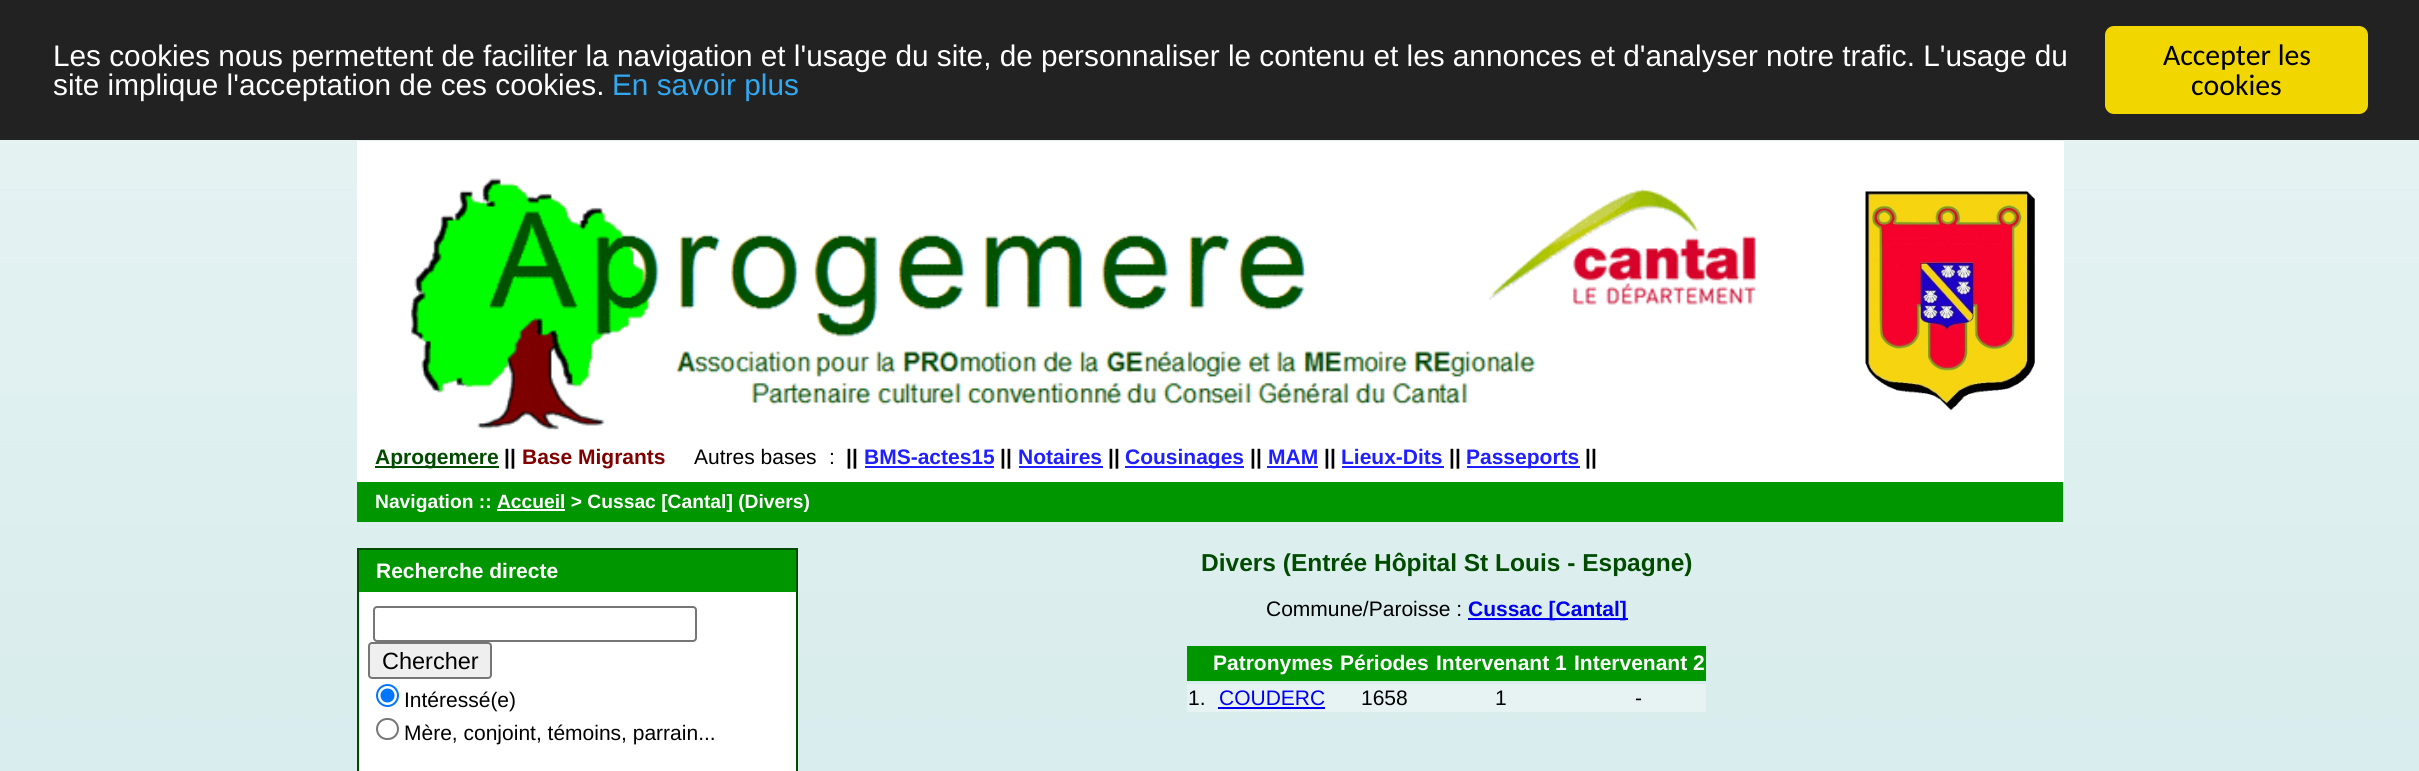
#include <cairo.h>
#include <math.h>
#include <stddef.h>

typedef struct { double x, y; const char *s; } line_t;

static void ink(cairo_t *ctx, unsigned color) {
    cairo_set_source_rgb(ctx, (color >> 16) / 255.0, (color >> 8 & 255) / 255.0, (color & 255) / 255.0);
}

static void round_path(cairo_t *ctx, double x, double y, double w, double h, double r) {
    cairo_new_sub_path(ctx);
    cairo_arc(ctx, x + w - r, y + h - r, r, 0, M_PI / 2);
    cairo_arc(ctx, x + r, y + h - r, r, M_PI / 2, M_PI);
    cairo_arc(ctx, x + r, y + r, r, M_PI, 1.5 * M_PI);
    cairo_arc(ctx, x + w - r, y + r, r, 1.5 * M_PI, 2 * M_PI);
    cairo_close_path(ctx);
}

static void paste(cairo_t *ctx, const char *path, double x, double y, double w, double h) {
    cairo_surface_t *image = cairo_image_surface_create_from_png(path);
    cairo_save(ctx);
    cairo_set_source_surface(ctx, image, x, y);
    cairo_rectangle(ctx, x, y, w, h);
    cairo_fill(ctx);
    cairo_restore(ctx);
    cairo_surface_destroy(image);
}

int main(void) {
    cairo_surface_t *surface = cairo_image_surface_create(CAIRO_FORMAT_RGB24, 2419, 771);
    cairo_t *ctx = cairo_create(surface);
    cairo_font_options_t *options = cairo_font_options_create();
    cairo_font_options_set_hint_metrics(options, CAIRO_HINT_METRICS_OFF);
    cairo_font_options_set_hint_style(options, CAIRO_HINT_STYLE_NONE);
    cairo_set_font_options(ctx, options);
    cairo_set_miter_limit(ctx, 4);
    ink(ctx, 0xFFFFFF);
    cairo_paint(ctx);
    paste(ctx, "media/1.png", 0, 140, 2419, 631);
    ink(ctx, 0x222222);
    cairo_rectangle(ctx, 0, 0, 2419, 140);
    cairo_fill(ctx);
    cairo_select_font_face(ctx, "Liberation Sans", CAIRO_FONT_SLANT_NORMAL, CAIRO_FONT_WEIGHT_NORMAL);
    cairo_set_font_size(ctx, 29.75);
    ink(ctx, 0xFFFFFF);
    cairo_move_to(ctx, 53, 66);
    cairo_show_text(ctx, "Les cookies nous permettent de faciliter la navigation et l'usage du site, de personnaliser le contenu et les annonces et d'analyser notre trafic. L'usage du");
    cairo_move_to(ctx, 53, 95);
    cairo_show_text(ctx, "site implique l'acceptation de ces cookies.");
    ink(ctx, 0x31A8F0);
    cairo_move_to(ctx, 612, 95);
    cairo_show_text(ctx, "En savoir plus");
    ink(ctx, 0xF1D600);
    round_path(ctx, 2105, 26, 263, 88, 9);
    cairo_fill(ctx);
    cairo_select_font_face(ctx, "Carlito", CAIRO_FONT_SLANT_NORMAL, CAIRO_FONT_WEIGHT_NORMAL);
    ink(ctx, 0x000000);
    cairo_move_to(ctx, 2163, 65);
    cairo_show_text(ctx, "Accepter les");
    cairo_move_to(ctx, 2191, 95);
    cairo_show_text(ctx, "cookies");
    ink(ctx, 0xFFFFFF);
    cairo_rectangle(ctx, 357, 141, 1707, 341);
    cairo_fill(ctx);
    paste(ctx, "media/2.png", 410, 178, 1346, 252);
    paste(ctx, "media/3.png", 1865, 191, 170, 220);
    ink(ctx, 0x004B00);
    cairo_rectangle(ctx, 375, 466, 124, 2);
    cairo_fill(ctx);
    cairo_select_font_face(ctx, "Liberation Sans", CAIRO_FONT_SLANT_NORMAL, CAIRO_FONT_WEIGHT_BOLD);
    cairo_set_font_size(ctx, 21);
    cairo_move_to(ctx, 375, 464);
    cairo_show_text(ctx, "Aprogemere");
    ink(ctx, 0x000000);
    cairo_move_to(ctx, 504, 464);
    cairo_show_text(ctx, "||");
    ink(ctx, 0x800000);
    cairo_move_to(ctx, 522, 464);
    cairo_show_text(ctx, "Base Migrants");
    cairo_select_font_face(ctx, "Liberation Sans", CAIRO_FONT_SLANT_NORMAL, CAIRO_FONT_WEIGHT_NORMAL);
    ink(ctx, 0x000000);
    cairo_move_to(ctx, 694, 464);
    cairo_show_text(ctx, "Autres bases");
    cairo_move_to(ctx, 829, 464);
    cairo_show_text(ctx, ":");
    cairo_select_font_face(ctx, "Liberation Sans", CAIRO_FONT_SLANT_NORMAL, CAIRO_FONT_WEIGHT_BOLD);
    cairo_move_to(ctx, 846, 464);
    cairo_show_text(ctx, "||");
    ink(ctx, 0x2020FF);
    cairo_move_to(ctx, 864, 464);
    cairo_show_text(ctx, "BMS-actes15");
    cairo_rectangle(ctx, 865, 466, 129, 2);
    cairo_fill(ctx);
    ink(ctx, 0x000000);
    cairo_move_to(ctx, 1000, 464);
    cairo_show_text(ctx, "||");
    ink(ctx, 0x2020FF);
    cairo_move_to(ctx, 1018, 464);
    cairo_show_text(ctx, "Notaires");
    cairo_rectangle(ctx, 1019, 466, 84, 2);
    cairo_fill(ctx);
    ink(ctx, 0x000000);
    cairo_move_to(ctx, 1108, 464);
    cairo_show_text(ctx, "||");
    ink(ctx, 0x2020FF);
    cairo_rectangle(ctx, 1125, 466, 119, 2);
    cairo_fill(ctx);
    cairo_move_to(ctx, 1125, 464);
    cairo_show_text(ctx, "Cousinages");
    ink(ctx, 0x000000);
    cairo_move_to(ctx, 1250, 464);
    cairo_show_text(ctx, "||");
    ink(ctx, 0x2020FF);
    cairo_move_to(ctx, 1268, 464);
    cairo_show_text(ctx, "MAM");
    cairo_rectangle(ctx, 1267, 466, 51, 2);
    cairo_fill(ctx);
    ink(ctx, 0x000000);
    cairo_move_to(ctx, 1324, 464);
    cairo_show_text(ctx, "||");
    ink(ctx, 0x2020FF);
    cairo_move_to(ctx, 1341, 464);
    cairo_show_text(ctx, "Lieux-Dits");
    cairo_rectangle(ctx, 1342, 466, 102, 2);
    cairo_fill(ctx);
    ink(ctx, 0x000000);
    cairo_move_to(ctx, 1449, 464);
    cairo_show_text(ctx, "||");
    ink(ctx, 0x2020FF);
    cairo_rectangle(ctx, 1467, 466, 113, 2);
    cairo_fill(ctx);
    cairo_move_to(ctx, 1466, 464);
    cairo_show_text(ctx, "Passeports");
    ink(ctx, 0x000000);
    cairo_move_to(ctx, 1585, 464);
    cairo_show_text(ctx, "||");
    ink(ctx, 0x009600);
    cairo_rectangle(ctx, 357, 482, 1706, 40);
    cairo_fill(ctx);
    cairo_set_font_size(ctx, 19.25);
    ink(ctx, 0xFFFFFF);
    cairo_move_to(ctx, 375, 508);
    cairo_show_text(ctx, "Navigation :: Accueil > Cussac [Cantal] (Divers)");
    cairo_rectangle(ctx, 497, 509, 68, 2);
    cairo_fill(ctx);
    cairo_rectangle(ctx, 359, 592, 437, 179);
    cairo_fill(ctx);
    cairo_rectangle(ctx, 358, 549, 439, 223);
    ink(ctx, 0x004B00);
    cairo_stroke(ctx);
    ink(ctx, 0x009600);
    cairo_rectangle(ctx, 359, 550, 437, 42);
    cairo_fill(ctx);
    cairo_set_font_size(ctx, 21);
    ink(ctx, 0xFFFFFF);
    cairo_move_to(ctx, 376, 578);
    cairo_show_text(ctx, "Recherche directe");
    round_path(ctx, 374, 607, 322, 34, 3);
    ink(ctx, 0x767676);
    cairo_stroke(ctx);
    ink(ctx, 0xEFEFEF);
    round_path(ctx, 369, 643, 122, 35, 3);
    cairo_fill_preserve(ctx);
    ink(ctx, 0x767676);
    cairo_stroke(ctx);
    cairo_select_font_face(ctx, "Liberation Sans", CAIRO_FONT_SLANT_NORMAL, CAIRO_FONT_WEIGHT_NORMAL);
    cairo_set_font_size(ctx, 23.5);
    ink(ctx, 0x000000);
    cairo_move_to(ctx, 382, 669);
    cairo_show_text(ctx, "Chercher");
    cairo_new_path(ctx);
    cairo_arc(ctx, 387.5, 695.5, 10.5, 0, 2 * M_PI);
    ink(ctx, 0x0075FF);
    cairo_stroke(ctx);
    cairo_arc(ctx, 387.5, 695.5, 7, 0, 2 * M_PI);
    cairo_fill(ctx);
    cairo_set_font_size(ctx, 21);
    ink(ctx, 0x000000);
    cairo_move_to(ctx, 404, 707);
    cairo_show_text(ctx, "Intéressé(e)");
    round_path(ctx, 377, 719, 21, 20, 10);
    ink(ctx, 0x767676);
    cairo_stroke(ctx);
    ink(ctx, 0x000000);
    cairo_move_to(ctx, 404, 740);
    cairo_show_text(ctx, "Mère, conjoint, témoins, parrain...");
    cairo_select_font_face(ctx, "Liberation Sans", CAIRO_FONT_SLANT_NORMAL, CAIRO_FONT_WEIGHT_BOLD);
    cairo_set_font_size(ctx, 24.5);
    ink(ctx, 0x004B00);
    cairo_move_to(ctx, 1201, 571);
    cairo_show_text(ctx, "Divers (Entrée Hôpital St Louis - Espagne)");
    cairo_select_font_face(ctx, "Liberation Sans", CAIRO_FONT_SLANT_NORMAL, CAIRO_FONT_WEIGHT_NORMAL);
    cairo_set_font_size(ctx, 21);
    ink(ctx, 0x000000);
    cairo_move_to(ctx, 1266, 616);
    cairo_show_text(ctx, "Commune/Paroisse :");
    ink(ctx, 0x0000EE);
    cairo_rectangle(ctx, 1468, 618, 160, 2);
    cairo_fill(ctx);
    cairo_select_font_face(ctx, "Liberation Sans", CAIRO_FONT_SLANT_NORMAL, CAIRO_FONT_WEIGHT_BOLD);
    cairo_move_to(ctx, 1468, 616);
    cairo_show_text(ctx, "Cussac [Cantal]");
    ink(ctx, 0x009600);
    cairo_rectangle(ctx, 1187, 646, 519, 35);
    cairo_fill(ctx);
    ink(ctx, 0xFFFFFF);
    {
        static const line_t items[] = {
            {1213, 670, "Patronymes"},
            {1340, 670, "Périodes"},
            {1436, 670, "Intervenant 1"},
            {1574, 670, "Intervenant 2"},
        };
        for (size_t i = 0; i < sizeof items / sizeof *items; i++) {
            cairo_move_to(ctx, items[i].x, items[i].y);
            cairo_show_text(ctx, items[i].s);
        }
    }
    ink(ctx, 0xE7F3F3);
    cairo_rectangle(ctx, 1187, 684, 519, 28);
    cairo_fill(ctx);
    cairo_select_font_face(ctx, "Liberation Sans", CAIRO_FONT_SLANT_NORMAL, CAIRO_FONT_WEIGHT_NORMAL);
    ink(ctx, 0x000000);
    cairo_move_to(ctx, 1188, 705);
    cairo_show_text(ctx, "1.");
    ink(ctx, 0x0000EE);
    cairo_move_to(ctx, 1219, 705);
    cairo_show_text(ctx, "COUDERC");
    cairo_rectangle(ctx, 1218, 707, 107, 2);
    cairo_fill(ctx);
    ink(ctx, 0x000000);
    {
        static const line_t items[] = {
            {1361, 705, "1658"},
            {1495, 705, "1"},
            {1635, 705, "-"},
        };
        for (size_t i = 0; i < sizeof items / sizeof *items; i++) {
            cairo_move_to(ctx, items[i].x, items[i].y);
            cairo_show_text(ctx, items[i].s);
        }
    }
    cairo_surface_write_to_png(surface, "image.png");
    cairo_font_options_destroy(options);
    cairo_destroy(ctx);
    cairo_surface_destroy(surface);
    return 0;
}
